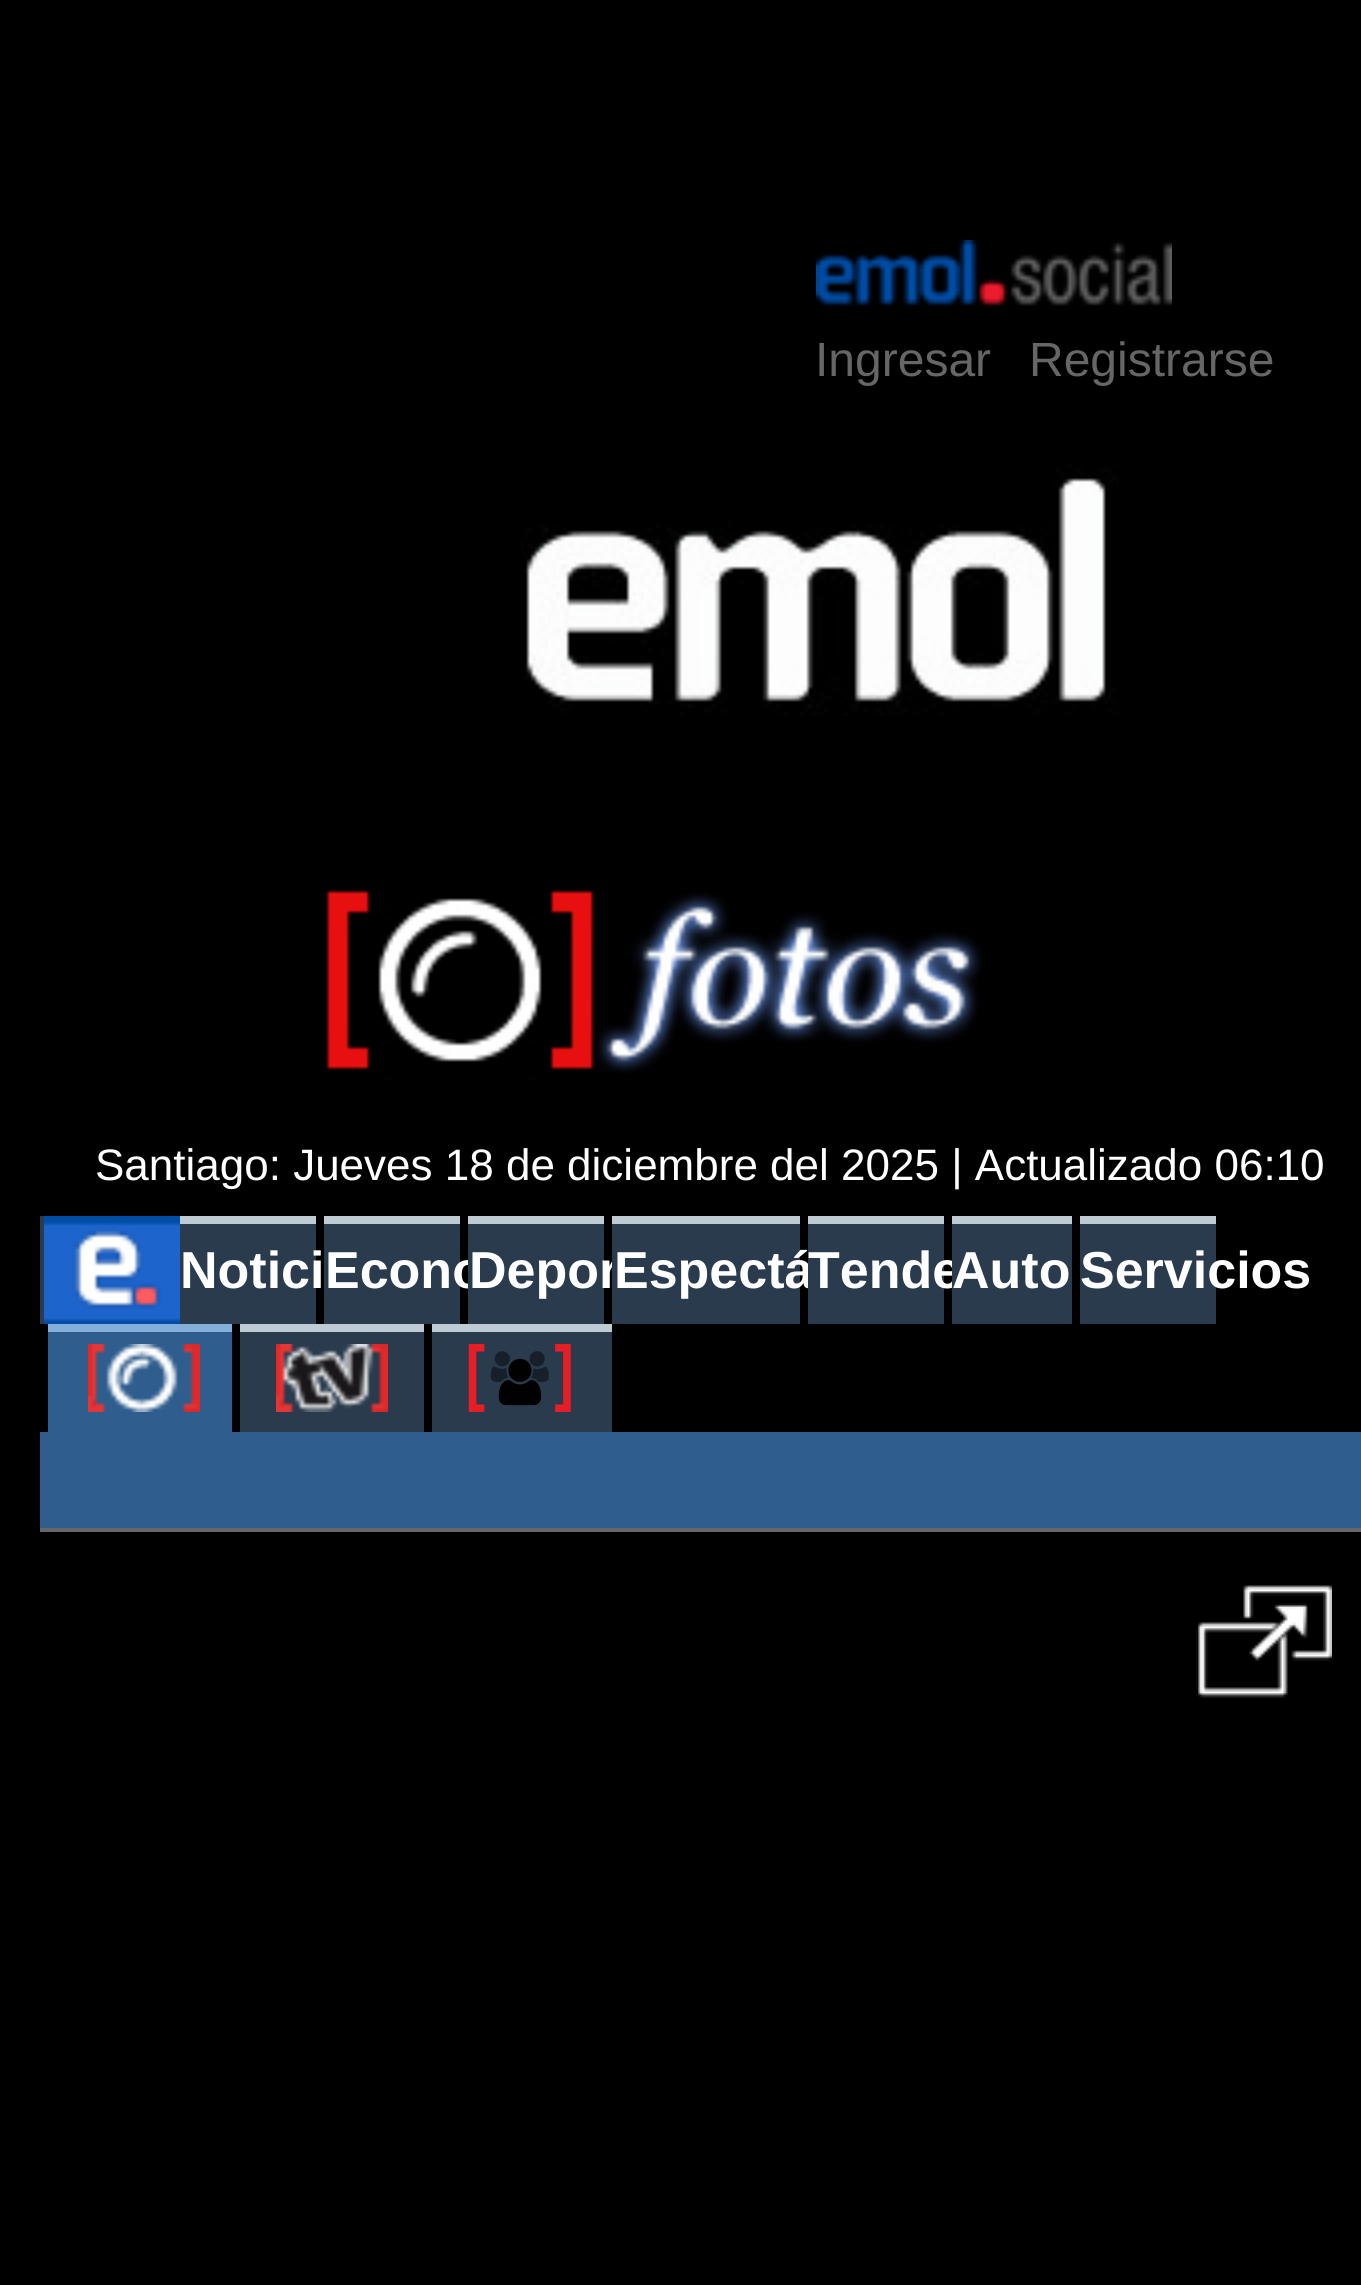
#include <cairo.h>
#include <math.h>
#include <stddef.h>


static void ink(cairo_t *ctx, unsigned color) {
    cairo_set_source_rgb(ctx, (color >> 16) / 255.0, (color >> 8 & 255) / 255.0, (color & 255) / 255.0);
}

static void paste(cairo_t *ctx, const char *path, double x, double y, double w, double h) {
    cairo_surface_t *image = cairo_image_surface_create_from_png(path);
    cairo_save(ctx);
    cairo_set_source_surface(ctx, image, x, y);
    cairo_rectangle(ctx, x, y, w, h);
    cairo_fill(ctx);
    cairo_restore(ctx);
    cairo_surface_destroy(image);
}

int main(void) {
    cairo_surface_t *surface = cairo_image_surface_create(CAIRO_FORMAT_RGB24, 1361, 2285);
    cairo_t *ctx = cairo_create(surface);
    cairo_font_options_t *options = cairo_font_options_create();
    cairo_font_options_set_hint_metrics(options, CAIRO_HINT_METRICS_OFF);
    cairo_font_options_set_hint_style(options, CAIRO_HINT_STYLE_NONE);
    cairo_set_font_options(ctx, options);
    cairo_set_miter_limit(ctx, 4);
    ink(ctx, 0x000000);
    cairo_paint(ctx);
    paste(ctx, "media/1.png", 816, 240, 356, 66);
    cairo_select_font_face(ctx, "Liberation Sans", CAIRO_FONT_SLANT_NORMAL, CAIRO_FONT_WEIGHT_NORMAL);
    cairo_set_font_size(ctx, 48);
    ink(ctx, 0x666666);
    cairo_move_to(ctx, 815, 376);
    cairo_show_text(ctx, "Ingresar");
    cairo_move_to(ctx, 1029, 376);
    cairo_show_text(ctx, "Registrarse");
    paste(ctx, "media/2.png", 521, 463, 598, 253);
    paste(ctx, "media/3.png", 326, 890, 656, 192);
    cairo_set_font_size(ctx, 44);
    ink(ctx, 0xFFFFFF);
    cairo_move_to(ctx, 95, 1180);
    cairo_show_text(ctx, "Santiago: Jueves 18 de diciembre del 2025 | Actualizado 06:10");
    ink(ctx, 0x293B4D);
    cairo_rectangle(ctx, 40, 1216, 4, 108);
    cairo_fill(ctx);
    paste(ctx, "media/4.png", 44, 1216, 136, 108);
    cairo_rectangle(ctx, 180, 1224, 136, 100);
    cairo_fill(ctx);
    ink(ctx, 0xBECBD3);
    cairo_rectangle(ctx, 180, 1216, 136, 8);
    cairo_fill(ctx);
    cairo_select_font_face(ctx, "Liberation Sans", CAIRO_FONT_SLANT_NORMAL, CAIRO_FONT_WEIGHT_BOLD);
    cairo_set_font_size(ctx, 52);
    ink(ctx, 0xFFFFFF);
    cairo_move_to(ctx, 180, 1288);
    cairo_show_text(ctx, "Notici");
    ink(ctx, 0x293B4D);
    cairo_rectangle(ctx, 324, 1224, 136, 100);
    cairo_fill(ctx);
    ink(ctx, 0xBECBD3);
    cairo_rectangle(ctx, 324, 1216, 136, 8);
    cairo_fill(ctx);
    ink(ctx, 0xFFFFFF);
    cairo_move_to(ctx, 325, 1288);
    cairo_show_text(ctx, "Econo");
    ink(ctx, 0x293B4D);
    cairo_rectangle(ctx, 468, 1224, 136, 100);
    cairo_fill(ctx);
    ink(ctx, 0xBECBD3);
    cairo_rectangle(ctx, 468, 1216, 136, 8);
    cairo_fill(ctx);
    ink(ctx, 0xFFFFFF);
    cairo_move_to(ctx, 469, 1288);
    cairo_show_text(ctx, "Depor");
    ink(ctx, 0x293B4D);
    cairo_rectangle(ctx, 612, 1224, 188, 100);
    cairo_fill(ctx);
    ink(ctx, 0xBECBD3);
    cairo_rectangle(ctx, 612, 1216, 188, 8);
    cairo_fill(ctx);
    ink(ctx, 0xFFFFFF);
    cairo_move_to(ctx, 614, 1288);
    cairo_show_text(ctx, "Espectá");
    ink(ctx, 0x293B4D);
    cairo_rectangle(ctx, 808, 1224, 136, 100);
    cairo_fill(ctx);
    ink(ctx, 0xBECBD3);
    cairo_rectangle(ctx, 808, 1216, 136, 8);
    cairo_fill(ctx);
    ink(ctx, 0xFFFFFF);
    cairo_move_to(ctx, 808, 1288);
    cairo_show_text(ctx, "Tende");
    ink(ctx, 0x293B4D);
    cairo_rectangle(ctx, 952, 1224, 120, 100);
    cairo_fill(ctx);
    ink(ctx, 0xBECBD3);
    cairo_rectangle(ctx, 952, 1216, 120, 8);
    cairo_fill(ctx);
    ink(ctx, 0xFFFFFF);
    cairo_move_to(ctx, 952, 1288);
    cairo_show_text(ctx, "Auto");
    ink(ctx, 0x293B4D);
    cairo_rectangle(ctx, 1080, 1224, 136, 100);
    cairo_fill(ctx);
    ink(ctx, 0xBECBD3);
    cairo_rectangle(ctx, 1080, 1216, 136, 8);
    cairo_fill(ctx);
    ink(ctx, 0xFFFFFF);
    cairo_move_to(ctx, 1080, 1288);
    cairo_show_text(ctx, "Servicios");
    ink(ctx, 0x2F5D8D);
    cairo_rectangle(ctx, 48, 1332, 184, 100);
    cairo_fill(ctx);
    ink(ctx, 0x85AFDB);
    cairo_rectangle(ctx, 48, 1324, 184, 8);
    cairo_fill(ctx);
    paste(ctx, "media/5.png", 88, 1344, 112, 68);
    ink(ctx, 0x293B4D);
    cairo_rectangle(ctx, 240, 1332, 184, 100);
    cairo_fill(ctx);
    ink(ctx, 0xBECBD3);
    cairo_rectangle(ctx, 240, 1324, 184, 8);
    cairo_fill(ctx);
    paste(ctx, "media/6.png", 276, 1344, 112, 68);
    ink(ctx, 0x293B4D);
    cairo_rectangle(ctx, 432, 1332, 180, 100);
    cairo_fill(ctx);
    ink(ctx, 0xBECBD3);
    cairo_rectangle(ctx, 432, 1324, 180, 8);
    cairo_fill(ctx);
    paste(ctx, "media/7.png", 468, 1344, 103, 68);
    ink(ctx, 0x2F5D8D);
    cairo_rectangle(ctx, 40, 1432, 1321, 96);
    cairo_fill(ctx);
    ink(ctx, 0x666666);
    cairo_rectangle(ctx, 40, 1528, 1321, 4);
    cairo_fill(ctx);
    paste(ctx, "media/8.png", 1196, 1585, 136, 113);
    cairo_surface_write_to_png(surface, "image.png");
    cairo_font_options_destroy(options);
    cairo_destroy(ctx);
    cairo_surface_destroy(surface);
    return 0;
}
